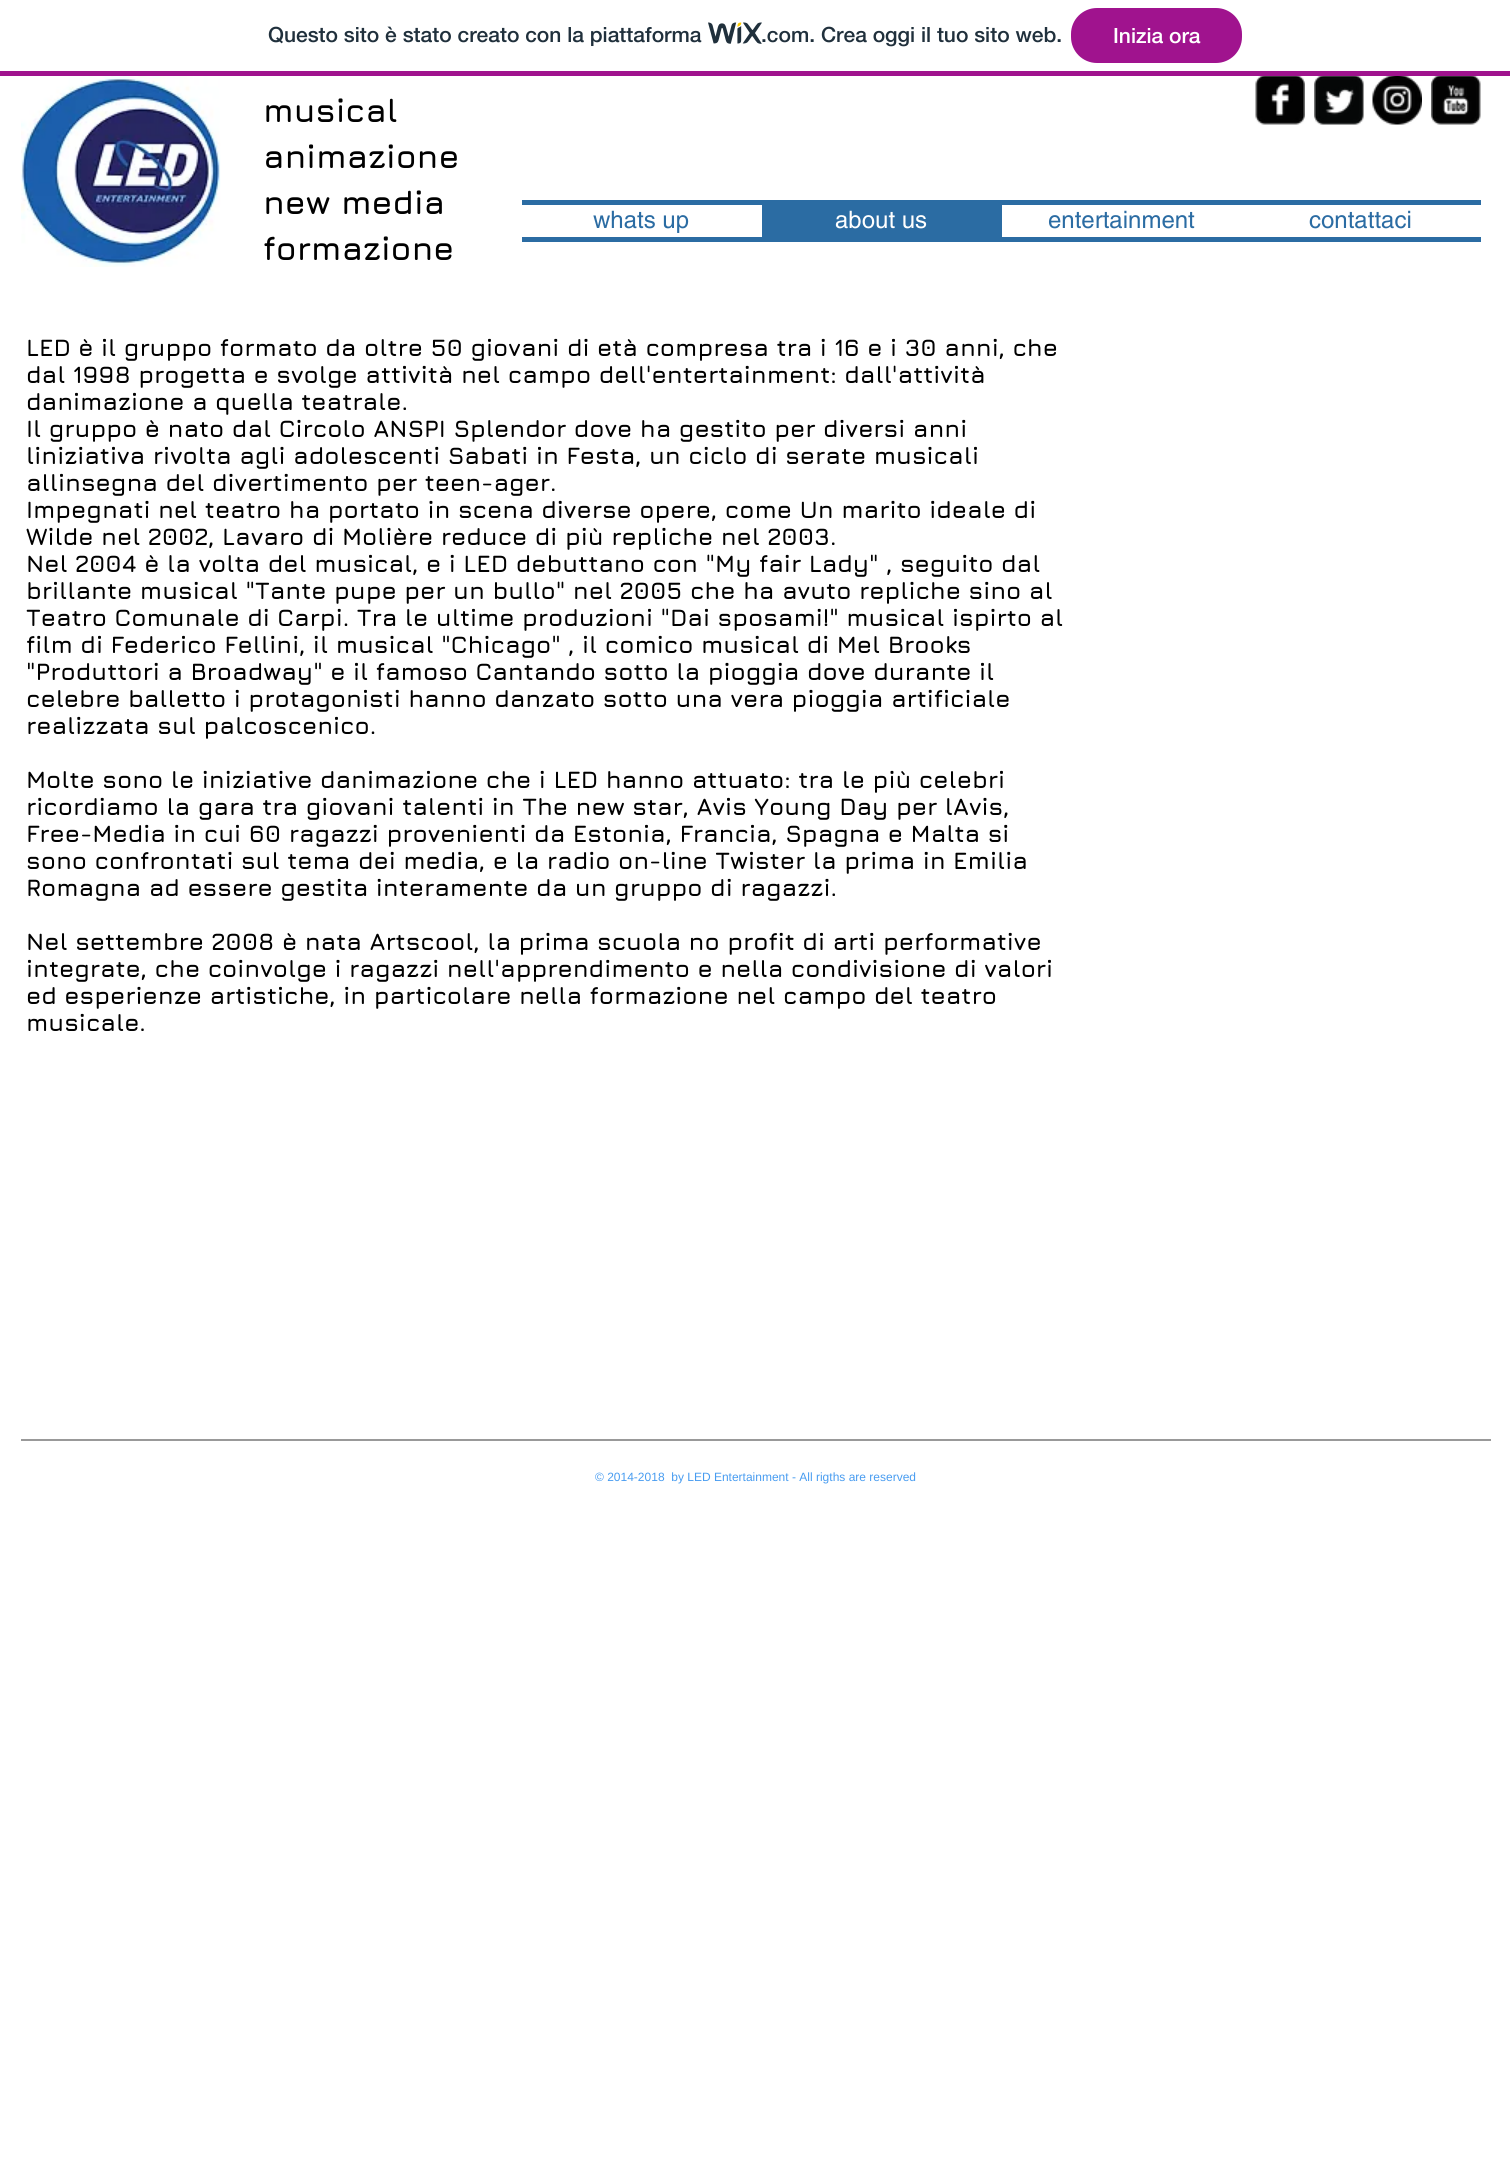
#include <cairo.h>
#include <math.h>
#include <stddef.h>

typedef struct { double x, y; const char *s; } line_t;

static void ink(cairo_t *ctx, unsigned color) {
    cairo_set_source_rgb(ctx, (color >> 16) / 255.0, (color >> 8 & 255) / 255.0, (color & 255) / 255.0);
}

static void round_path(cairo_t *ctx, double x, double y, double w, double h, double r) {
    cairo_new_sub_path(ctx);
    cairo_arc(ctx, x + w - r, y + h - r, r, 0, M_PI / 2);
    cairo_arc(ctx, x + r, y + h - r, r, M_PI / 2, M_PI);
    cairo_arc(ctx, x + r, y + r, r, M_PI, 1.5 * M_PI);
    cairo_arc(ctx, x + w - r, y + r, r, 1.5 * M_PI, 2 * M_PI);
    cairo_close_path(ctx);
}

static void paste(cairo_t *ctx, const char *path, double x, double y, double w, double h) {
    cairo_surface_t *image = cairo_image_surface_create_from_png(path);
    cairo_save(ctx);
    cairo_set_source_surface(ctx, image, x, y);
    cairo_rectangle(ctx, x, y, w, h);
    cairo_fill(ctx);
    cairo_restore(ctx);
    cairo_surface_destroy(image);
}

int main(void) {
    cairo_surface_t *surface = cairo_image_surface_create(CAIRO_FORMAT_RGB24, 1510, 2174);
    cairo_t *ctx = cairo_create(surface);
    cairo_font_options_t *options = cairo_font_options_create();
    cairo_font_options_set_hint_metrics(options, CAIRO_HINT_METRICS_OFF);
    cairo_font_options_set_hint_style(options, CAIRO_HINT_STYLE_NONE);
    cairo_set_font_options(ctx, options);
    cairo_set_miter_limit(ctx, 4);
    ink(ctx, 0xFFFFFF);
    cairo_paint(ctx);
    ink(ctx, 0xA0138E);
    cairo_rectangle(ctx, 0, 71, 1510, 5);
    cairo_fill(ctx);
    cairo_select_font_face(ctx, "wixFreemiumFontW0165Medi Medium", CAIRO_FONT_SLANT_NORMAL, CAIRO_FONT_WEIGHT_NORMAL);
    cairo_set_font_size(ctx, 21);
    ink(ctx, 0x20303C);
    cairo_move_to(ctx, 268, 42);
    cairo_show_text(ctx, "Questo sito è stato creato con la piattaforma");
    paste(ctx, "media/1.png", 708, 22, 54, 22);
    cairo_move_to(ctx, 761, 42);
    cairo_show_text(ctx, ".com. Crea oggi il tuo sito web.");
    ink(ctx, 0xA0138E);
    round_path(ctx, 1072, 9, 169, 53, 25);
    cairo_fill_preserve(ctx);
    cairo_stroke(ctx);
    ink(ctx, 0xFFFFFF);
    cairo_move_to(ctx, 1113, 43);
    cairo_show_text(ctx, "Inizia ora");
    paste(ctx, "media/2.png", 21, 76, 200, 191);
    cairo_select_font_face(ctx, "Jura", CAIRO_FONT_SLANT_NORMAL, CAIRO_FONT_WEIGHT_BOLD);
    cairo_set_font_size(ctx, 33);
    ink(ctx, 0x000000);
    {
        static const line_t items[] = {
            {263, 122, "musical"},
            {263, 168, "animazione"},
            {263, 214, "new media"},
            {263, 260, "formazione"},
        };
        for (size_t i = 0; i < sizeof items / sizeof *items; i++) {
            cairo_move_to(ctx, items[i].x, items[i].y);
            cairo_show_text(ctx, items[i].s);
        }
    }
    paste(ctx, "media/3.png", 1255, 76, 50, 49);
    paste(ctx, "media/4.png", 1314, 76, 50, 49);
    paste(ctx, "media/5.png", 1372, 76, 50, 49);
    paste(ctx, "media/6.png", 1431, 76, 50, 49);
    ink(ctx, 0x2B6CA3);
    cairo_rectangle(ctx, 522, 200, 959, 5);
    cairo_fill(ctx);
    cairo_rectangle(ctx, 522, 237, 959, 5);
    cairo_fill(ctx);
    cairo_select_font_face(ctx, "helvetica", CAIRO_FONT_SLANT_NORMAL, CAIRO_FONT_WEIGHT_NORMAL);
    cairo_set_font_size(ctx, 24);
    cairo_move_to(ctx, 593, 228);
    cairo_show_text(ctx, "whats up");
    cairo_rectangle(ctx, 762, 205, 240, 32);
    cairo_fill(ctx);
    ink(ctx, 0xFFFFFF);
    cairo_move_to(ctx, 835, 228);
    cairo_show_text(ctx, "about us");
    ink(ctx, 0x2B6CA3);
    cairo_move_to(ctx, 1048, 228);
    cairo_show_text(ctx, "entertainment");
    cairo_move_to(ctx, 1309, 228);
    cairo_show_text(ctx, "contattaci");
    cairo_select_font_face(ctx, "Jura", CAIRO_FONT_SLANT_NORMAL, CAIRO_FONT_WEIGHT_BOLD);
    ink(ctx, 0x000000);
    {
        static const line_t items[] = {
            {26, 356, "LED è il gruppo formato da oltre 50 giovani di età compresa tra i 16 e i 30 anni, che"},
            {26, 383, "dal 1998 progetta e svolge attività nel campo dell'entertainment: dall'attività"},
            {26, 410, "danimazione a quella teatrale."},
            {26, 437, "Il gruppo è nato dal Circolo ANSPI Splendor dove ha gestito per diversi anni"},
            {26, 464, "liniziativa rivolta agli adolescenti Sabati in Festa, un ciclo di serate musicali"},
            {26, 491, "allinsegna del divertimento per teen-ager."},
            {26, 518, "Impegnati nel teatro ha portato in scena diverse opere, come Un marito ideale di"},
            {26, 545, "Wilde nel 2002, Lavaro di Molière reduce di più repliche nel 2003."},
            {26, 572, "Nel 2004 è la volta del musical, e i LED debuttano con \"My fair Lady\" , seguito dal"},
            {26, 599, "brillante musical \"Tante pupe per un bullo\" nel 2005 che ha avuto repliche sino al"},
            {26, 626, "Teatro Comunale di Carpi. Tra le ultime produzioni \"Dai sposami!\" musical ispirto al"},
            {26, 653, "film di Federico Fellini, il musical \"Chicago\" , il comico musical di Mel Brooks"},
            {26, 680, "\"Produttori a Broadway\" e il famoso Cantando sotto la pioggia dove durante il"},
            {26, 707, "celebre balletto i protagonisti hanno danzato sotto una vera pioggia artificiale"},
            {26, 734, "realizzata sul palcoscenico."},
            {26, 788, "Molte sono le iniziative danimazione che i LED hanno attuato: tra le più celebri"},
            {26, 815, "ricordiamo la gara tra giovani talenti in The new star, Avis Young Day per lAvis,"},
            {26, 842, "Free-Media in cui 60 ragazzi provenienti da Estonia, Francia, Spagna e Malta si"},
            {26, 869, "sono confrontati sul tema dei media, e la radio on-line Twister la prima in Emilia"},
            {26, 896, "Romagna ad essere gestita interamente da un gruppo di ragazzi."},
            {26, 950, "Nel settembre 2008 è nata Artscool, la prima scuola no profit di arti performative"},
            {26, 977, "integrate, che coinvolge i ragazzi nell'apprendimento e nella condivisione di valori"},
            {26, 1004, "ed esperienze artistiche, in particolare nella formazione nel campo del teatro"},
            {26, 1031, "musicale."},
        };
        for (size_t i = 0; i < sizeof items / sizeof *items; i++) {
            cairo_move_to(ctx, items[i].x, items[i].y);
            cairo_show_text(ctx, items[i].s);
        }
    }
    ink(ctx, 0x999999);
    cairo_rectangle(ctx, 21, 1439, 1470, 2);
    cairo_fill(ctx);
    cairo_select_font_face(ctx, "Liberation Sans", CAIRO_FONT_SLANT_NORMAL, CAIRO_FONT_WEIGHT_NORMAL);
    cairo_set_font_size(ctx, 12);
    ink(ctx, 0x489CF0);
    cairo_move_to(ctx, 595, 1481);
    cairo_show_text(ctx, "© 2014-2018  by LED Entertainment - All rigths are reserved");
    cairo_surface_write_to_png(surface, "image.png");
    cairo_font_options_destroy(options);
    cairo_destroy(ctx);
    cairo_surface_destroy(surface);
    return 0;
}
